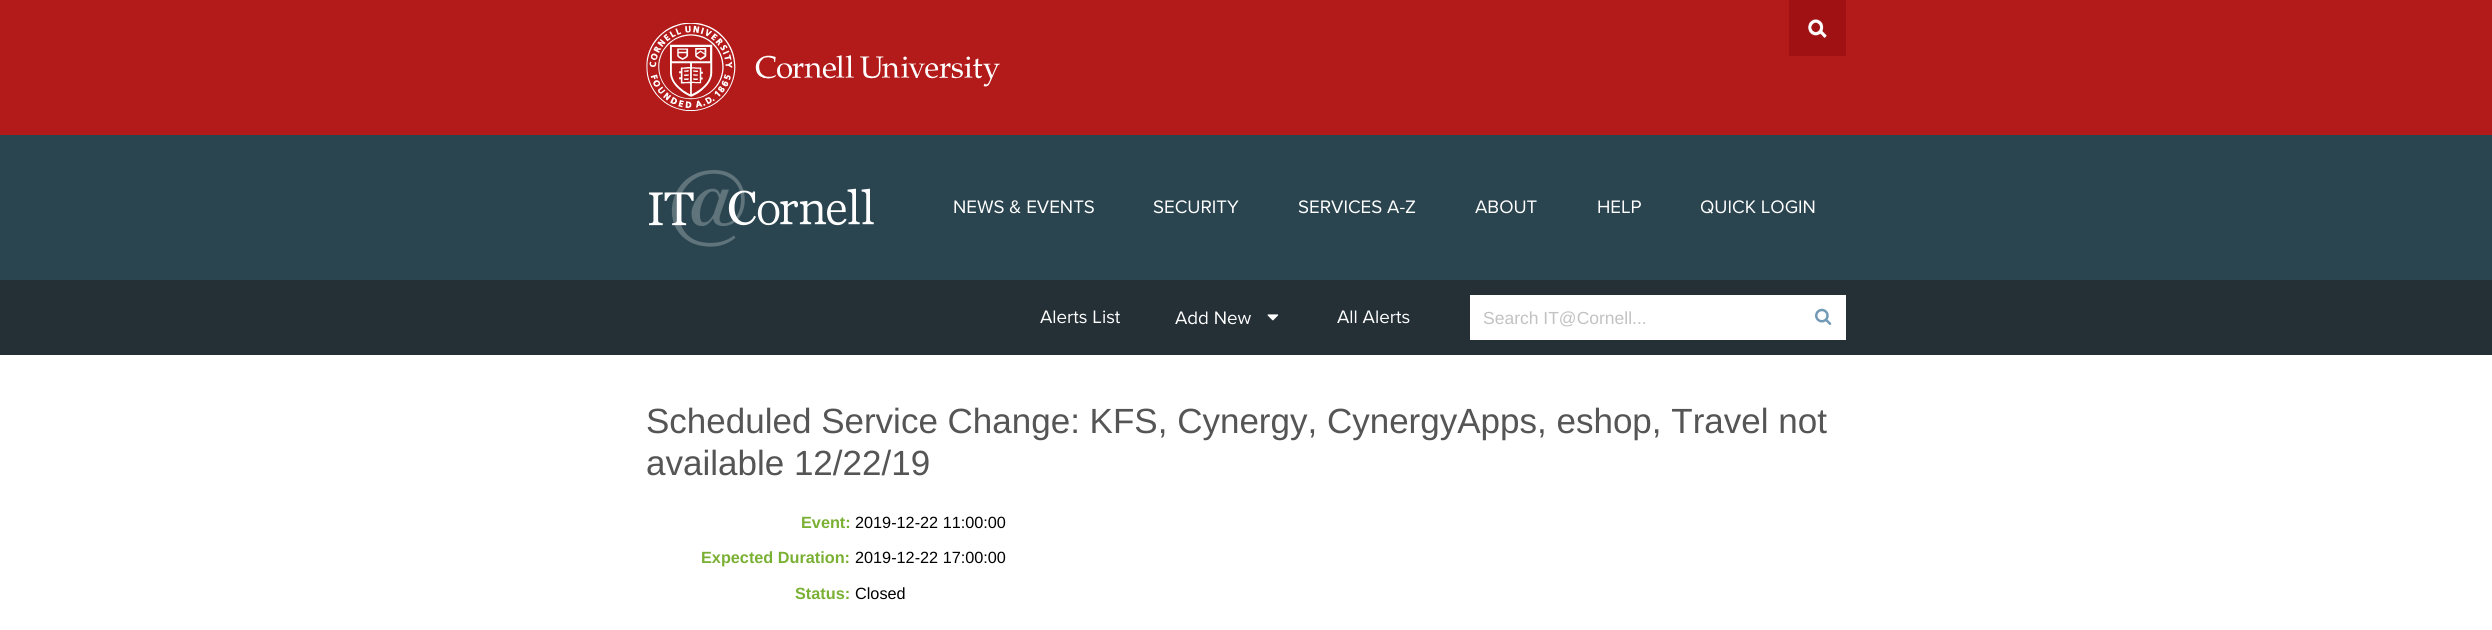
#include <cairo.h>
#include <math.h>
#include <stddef.h>

typedef struct { double x, y; const char *s; } line_t;

static void ink(cairo_t *ctx, unsigned color) {
    cairo_set_source_rgb(ctx, (color >> 16) / 255.0, (color >> 8 & 255) / 255.0, (color & 255) / 255.0);
}

static void paste(cairo_t *ctx, const char *path, double x, double y, double w, double h) {
    cairo_surface_t *image = cairo_image_surface_create_from_png(path);
    cairo_save(ctx);
    cairo_set_source_surface(ctx, image, x, y);
    cairo_rectangle(ctx, x, y, w, h);
    cairo_fill(ctx);
    cairo_restore(ctx);
    cairo_surface_destroy(image);
}

int main(void) {
    cairo_surface_t *surface = cairo_image_surface_create(CAIRO_FORMAT_RGB24, 2492, 630);
    cairo_t *ctx = cairo_create(surface);
    cairo_font_options_t *options = cairo_font_options_create();
    cairo_font_options_set_hint_metrics(options, CAIRO_HINT_METRICS_OFF);
    cairo_font_options_set_hint_style(options, CAIRO_HINT_STYLE_NONE);
    cairo_set_font_options(ctx, options);
    cairo_set_miter_limit(ctx, 4);
    ink(ctx, 0xFFFFFF);
    cairo_paint(ctx);
    ink(ctx, 0xB31B1B);
    cairo_rectangle(ctx, 0, 0, 2492, 135);
    cairo_fill(ctx);
    paste(ctx, "media/1.png", 646, 23, 354, 88);
    ink(ctx, 0xA01114);
    cairo_rectangle(ctx, 1789, 0, 57, 56);
    cairo_fill(ctx);
    paste(ctx, "media/2.png", 1808, 19, 19, 19);
    ink(ctx, 0x2B4550);
    cairo_rectangle(ctx, 0, 135, 2492, 145);
    cairo_fill(ctx);
    paste(ctx, "media/3.png", 649, 170, 225, 77);
    cairo_select_font_face(ctx, "Proxima Nova", CAIRO_FONT_SLANT_NORMAL, CAIRO_FONT_WEIGHT_NORMAL);
    cairo_set_font_size(ctx, 18.75);
    ink(ctx, 0xFFFFFF);
    {
        static const line_t items[] = {
            {953, 213, "NEWS & EVENTS"},
            {1153, 213, "SECURITY"},
            {1298, 213, "SERVICES A-Z"},
            {1475, 213, "ABOUT"},
            {1597, 213, "HELP"},
            {1700, 213, "QUICK LOGIN"},
        };
        for (size_t i = 0; i < sizeof items / sizeof *items; i++) {
            cairo_move_to(ctx, items[i].x, items[i].y);
            cairo_show_text(ctx, items[i].s);
        }
    }
    ink(ctx, 0x242F36);
    cairo_rectangle(ctx, 0, 280, 2492, 75);
    cairo_fill(ctx);
    ink(ctx, 0xFFFFFF);
    cairo_move_to(ctx, 1040, 323);
    cairo_show_text(ctx, "Alerts List");
    cairo_move_to(ctx, 1175, 324);
    cairo_show_text(ctx, "Add New");
    paste(ctx, "media/4.png", 1267, 314, 12, 7);
    cairo_move_to(ctx, 1337, 323);
    cairo_show_text(ctx, "All Alerts");
    cairo_rectangle(ctx, 1470, 295, 376, 45);
    cairo_fill(ctx);
    cairo_select_font_face(ctx, "Liberation Sans", CAIRO_FONT_SLANT_NORMAL, CAIRO_FONT_WEIGHT_NORMAL);
    cairo_set_font_size(ctx, 17.5);
    ink(ctx, 0xC2C2C2);
    cairo_move_to(ctx, 1483, 324);
    cairo_show_text(ctx, "Search IT@Cornell...");
    paste(ctx, "media/5.png", 1815, 308, 17, 17);
    cairo_set_font_size(ctx, 35);
    ink(ctx, 0x555555);
    cairo_move_to(ctx, 646, 433);
    cairo_show_text(ctx, "Scheduled Service Change: KFS, Cynergy, CynergyApps, eshop, Travel not");
    cairo_move_to(ctx, 646, 475);
    cairo_show_text(ctx, "available 12/22/19");
    cairo_select_font_face(ctx, "Liberation Sans", CAIRO_FONT_SLANT_NORMAL, CAIRO_FONT_WEIGHT_BOLD);
    cairo_set_font_size(ctx, 16.25);
    ink(ctx, 0x7AB034);
    cairo_move_to(ctx, 801, 528);
    cairo_show_text(ctx, "Event:");
    cairo_select_font_face(ctx, "Liberation Sans", CAIRO_FONT_SLANT_NORMAL, CAIRO_FONT_WEIGHT_NORMAL);
    ink(ctx, 0x000000);
    cairo_move_to(ctx, 855, 528);
    cairo_show_text(ctx, "2019-12-22 11:00:00");
    cairo_select_font_face(ctx, "Liberation Sans", CAIRO_FONT_SLANT_NORMAL, CAIRO_FONT_WEIGHT_BOLD);
    ink(ctx, 0x7AB034);
    cairo_move_to(ctx, 701, 563);
    cairo_show_text(ctx, "Expected Duration:");
    cairo_select_font_face(ctx, "Liberation Sans", CAIRO_FONT_SLANT_NORMAL, CAIRO_FONT_WEIGHT_NORMAL);
    ink(ctx, 0x000000);
    cairo_move_to(ctx, 855, 563);
    cairo_show_text(ctx, "2019-12-22 17:00:00");
    cairo_select_font_face(ctx, "Liberation Sans", CAIRO_FONT_SLANT_NORMAL, CAIRO_FONT_WEIGHT_BOLD);
    ink(ctx, 0x7AB034);
    cairo_move_to(ctx, 795, 599);
    cairo_show_text(ctx, "Status:");
    cairo_select_font_face(ctx, "Liberation Sans", CAIRO_FONT_SLANT_NORMAL, CAIRO_FONT_WEIGHT_NORMAL);
    ink(ctx, 0x000000);
    cairo_move_to(ctx, 855, 599);
    cairo_show_text(ctx, "Closed");
    cairo_surface_write_to_png(surface, "image.png");
    cairo_font_options_destroy(options);
    cairo_destroy(ctx);
    cairo_surface_destroy(surface);
    return 0;
}
